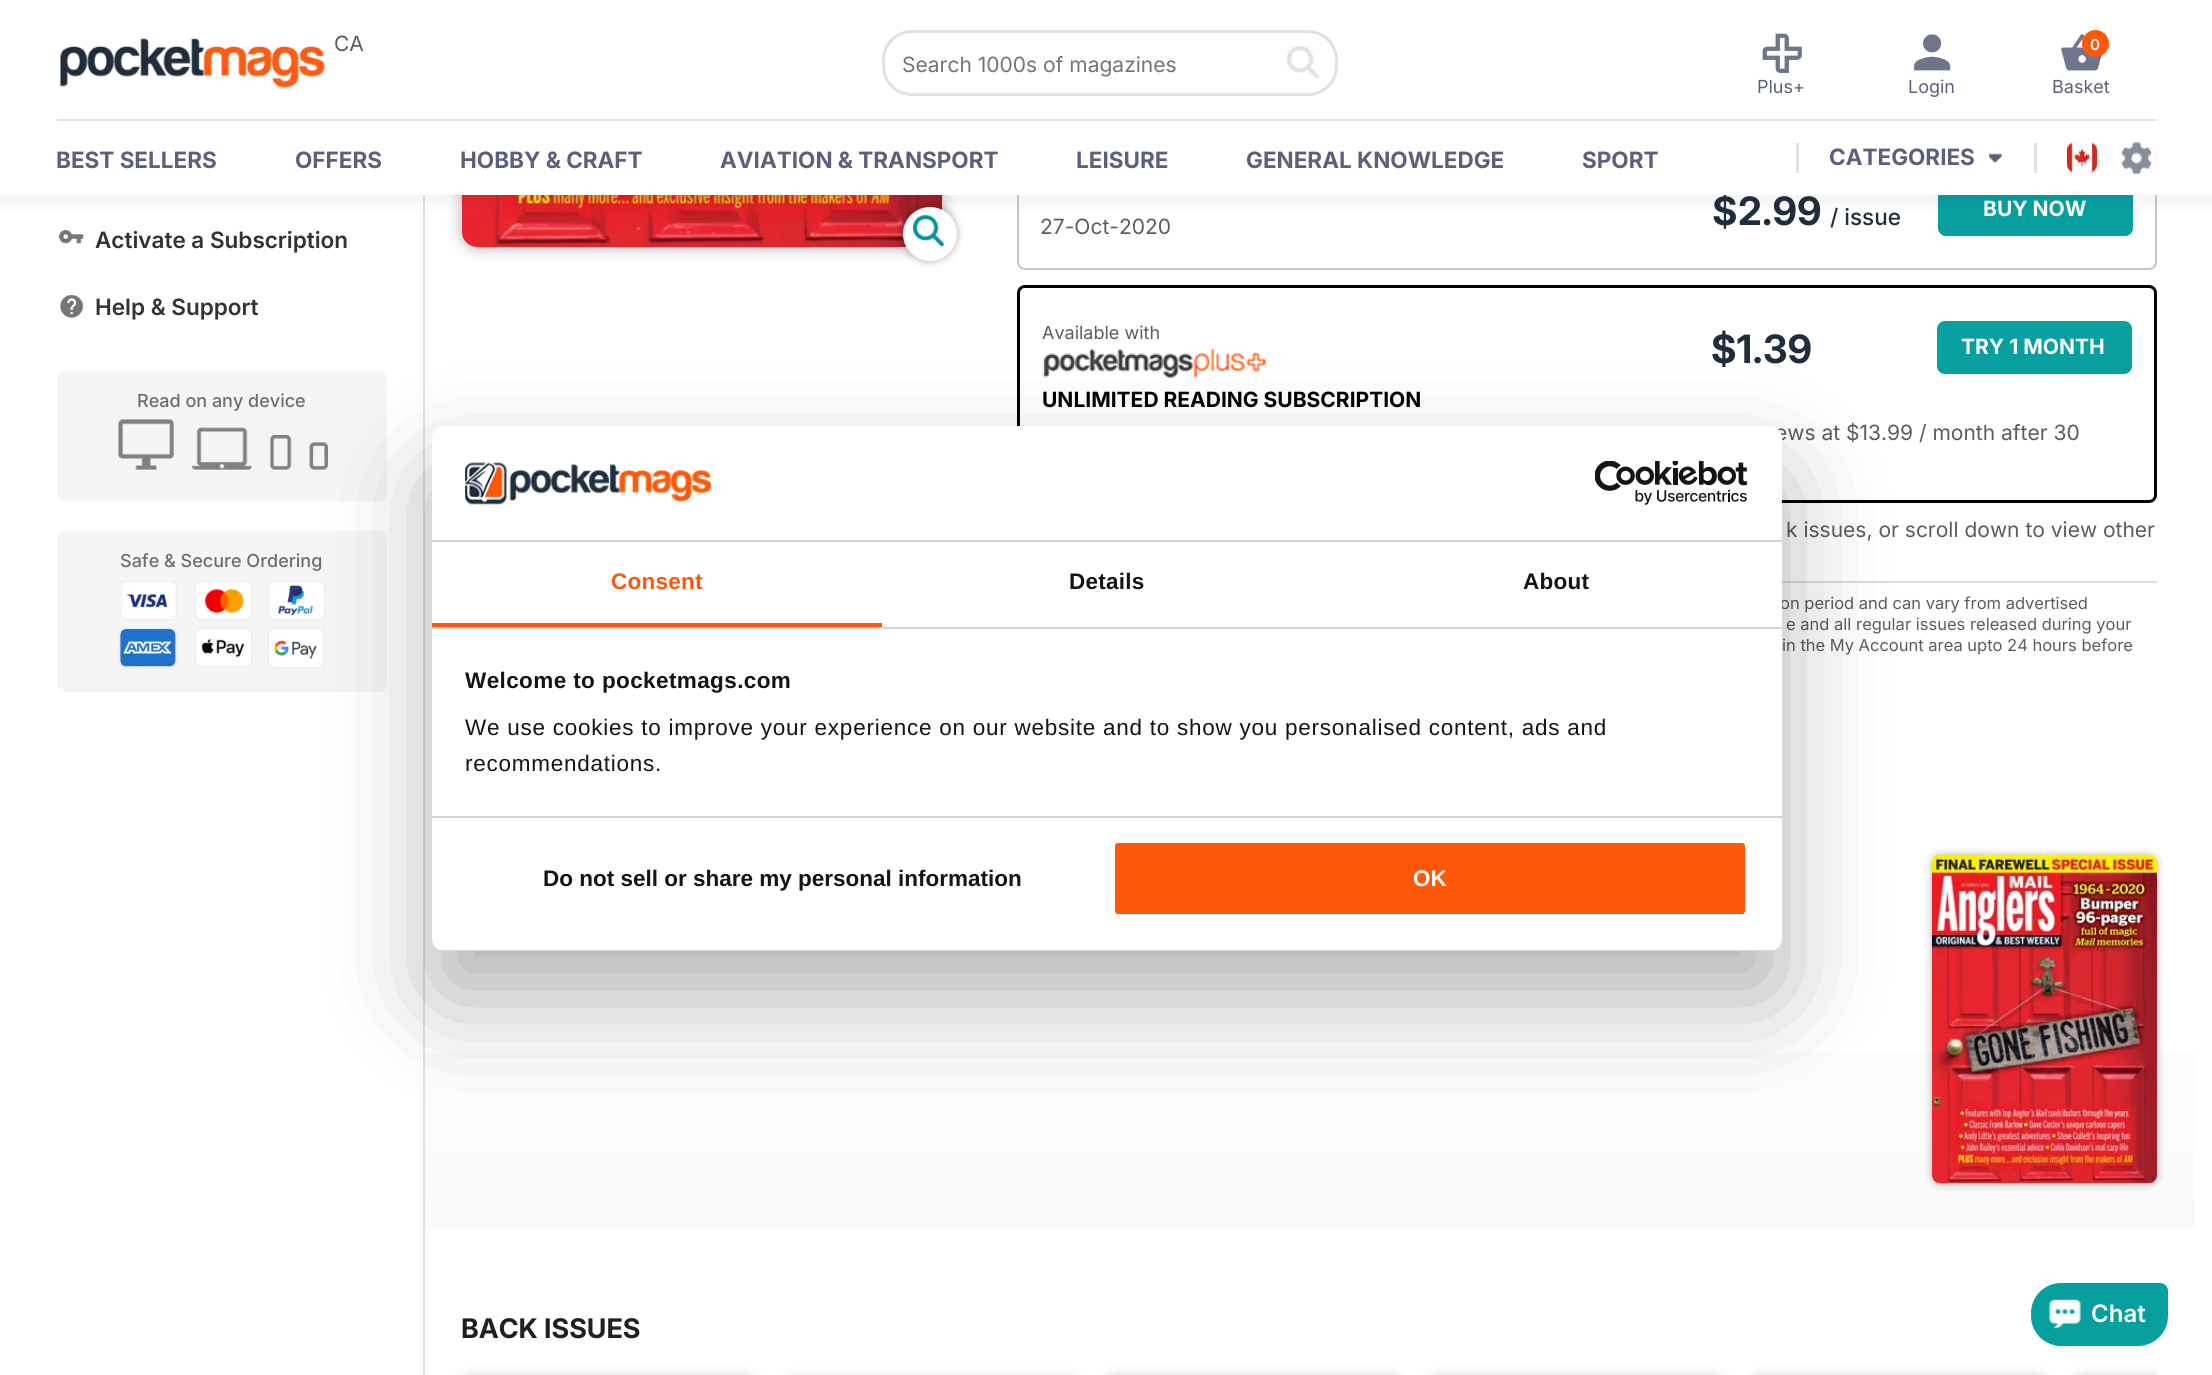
#include <cairo.h>
#include <math.h>
#include <stddef.h>

typedef struct { double x, y; const char *s; } line_t;

static void ink(cairo_t *ctx, unsigned color) {
    cairo_set_source_rgb(ctx, (color >> 16) / 255.0, (color >> 8 & 255) / 255.0, (color & 255) / 255.0);
}

static void write_spaced(cairo_t *ctx, double x, double y, const char *s, double letter, double word) {
    cairo_move_to(ctx, x, y);
    while (*s) {
        char ch[5] = {0};
        int n = 0;
        do ch[n++] = *s++; while ((*s & 0xC0) == 0x80);
        cairo_show_text(ctx, ch);
        cairo_rel_move_to(ctx, letter + word * (*ch == ' '), 0);
    }
}

static void round_path(cairo_t *ctx, double x, double y, double w, double h, double r) {
    cairo_new_sub_path(ctx);
    cairo_arc(ctx, x + w - r, y + h - r, r, 0, M_PI / 2);
    cairo_arc(ctx, x + r, y + h - r, r, M_PI / 2, M_PI);
    cairo_arc(ctx, x + r, y + r, r, M_PI, 1.5 * M_PI);
    cairo_arc(ctx, x + w - r, y + r, r, 1.5 * M_PI, 2 * M_PI);
    cairo_close_path(ctx);
}

static void blur_box(cairo_t *ctx, double x, double y, double w, double h, double r, double blur, double alpha) {
    cairo_push_group_with_content(ctx, CAIRO_CONTENT_ALPHA);
    cairo_set_operator(ctx, CAIRO_OPERATOR_SOURCE);
    for (int i = 15; i >= -15 && fmin(w, h) + blur * i / 3 > 0; i -= 2) {
        double e = blur * i / 6;
        cairo_set_source_rgba(ctx, 0, 0, 0, alpha * erfc((i - 1) / 8.5) / 2);
        round_path(ctx, x - e, y - e, w + 2 * e, h + 2 * e, fmax(0, fmin(r + e + blur * .6, fmin(w, h) / 2 + e)));
        cairo_fill(ctx);
    }
    cairo_pattern_t *soft = cairo_pop_group(ctx);
    cairo_mask(ctx, soft);
    cairo_pattern_destroy(soft);
}

static void paste(cairo_t *ctx, const char *path, double x, double y, double w, double h) {
    cairo_surface_t *image = cairo_image_surface_create_from_png(path);
    cairo_save(ctx);
    cairo_set_source_surface(ctx, image, x, y);
    cairo_rectangle(ctx, x, y, w, h);
    cairo_fill(ctx);
    cairo_restore(ctx);
    cairo_surface_destroy(image);
}

int main(void) {
    cairo_surface_t *surface = cairo_image_surface_create(CAIRO_FORMAT_RGB24, 2212, 1375);
    cairo_t *ctx = cairo_create(surface);
    cairo_font_options_t *options = cairo_font_options_create();
    cairo_font_options_set_hint_metrics(options, CAIRO_HINT_METRICS_OFF);
    cairo_font_options_set_hint_style(options, CAIRO_HINT_STYLE_NONE);
    cairo_set_font_options(ctx, options);
    cairo_set_miter_limit(ctx, 4);
    cairo_pattern_t *gradient;
    ink(ctx, 0xFFFFFF);
    cairo_paint(ctx);
    ink(ctx, 0xE1E1E1);
    cairo_rectangle(ctx, 423, 195, 2, 1180);
    cairo_fill(ctx);
    ink(ctx, 0x000000);
    blur_box(ctx, 462, -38, 480, 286, 15, 7.5, 0.3);
    paste(ctx, "media/14.png", 462, 195, 480, 52);
    blur_box(ctx, 903, 207, 54, 54, 27, 4, 0.3);
    ink(ctx, 0xFFFFFF);
    cairo_arc(ctx, 930, 234, 27, 0, 2 * M_PI);
    cairo_fill(ctx);
    paste(ctx, "media/13.png", 912, 214, 33, 33);
    round_path(ctx, 1018, 150, 1138, 119, 7);
    ink(ctx, 0xC6C6C6);
    cairo_stroke(ctx);
    ink(ctx, 0x079F9F);
    round_path(ctx, 1938, 183, 195, 53, 8);
    cairo_fill(ctx);
    ink(ctx, 0x000000);
    blur_box(ctx, -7, -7, 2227, 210, 0, 7.5, 0.05);
    cairo_select_font_face(ctx, "Inter", CAIRO_FONT_SLANT_NORMAL, CAIRO_FONT_WEIGHT_BOLD);
    cairo_set_font_size(ctx, 39);
    ink(ctx, 0x202D3C);
    cairo_move_to(ctx, 1712, 225);
    cairo_show_text(ctx, "$");
    ink(ctx, 0xFFFFFF);
    cairo_rectangle(ctx, 0, 0, 2212, 195);
    cairo_fill(ctx);
    ink(ctx, 0xE1E1E1);
    cairo_rectangle(ctx, 57, 119, 2100, 2);
    cairo_fill(ctx);
    paste(ctx, "media/1.png", 59, 38, 266, 51);
    cairo_select_font_face(ctx, "Inter", CAIRO_FONT_SLANT_NORMAL, CAIRO_FONT_WEIGHT_NORMAL);
    cairo_set_font_size(ctx, 21);
    ink(ctx, 0x5C5C5C);
    cairo_move_to(ctx, 334, 51);
    cairo_show_text(ctx, "CA");
    round_path(ctx, 883.5, 31.5, 453, 63, 28.5);
    ink(ctx, 0xE1E1E1);
    cairo_set_line_width(ctx, 3);
    cairo_stroke(ctx);
    ink(ctx, 0x757575);
    cairo_move_to(ctx, 902, 72);
    cairo_show_text(ctx, "Search 1000s of magazines");
    paste(ctx, "media/2.png", 1286, 45, 34, 34);
    paste(ctx, "media/3.png", 1762, 33, 40, 40);
    cairo_set_font_size(ctx, 18);
    ink(ctx, 0x5C607C);
    cairo_move_to(ctx, 1757, 93);
    cairo_show_text(ctx, "Plus+");
    paste(ctx, "media/4.png", 1914, 34, 37, 37);
    cairo_move_to(ctx, 1908, 93);
    cairo_show_text(ctx, "Login");
    paste(ctx, "media/5.png", 2061, 34, 41, 37);
    ink(ctx, 0xFF580A);
    cairo_arc(ctx, 2095.5, 43.5, 13.5, 0, 2 * M_PI);
    cairo_fill(ctx);
    cairo_select_font_face(ctx, "Inter SemiBold", CAIRO_FONT_SLANT_NORMAL, CAIRO_FONT_WEIGHT_NORMAL);
    cairo_set_font_size(ctx, 15);
    ink(ctx, 0xFFFFFF);
    cairo_move_to(ctx, 2090, 50);
    cairo_show_text(ctx, "0");
    cairo_select_font_face(ctx, "Inter", CAIRO_FONT_SLANT_NORMAL, CAIRO_FONT_WEIGHT_NORMAL);
    cairo_set_font_size(ctx, 18);
    ink(ctx, 0x5C607C);
    cairo_move_to(ctx, 2052, 93);
    cairo_show_text(ctx, "Basket");
    cairo_select_font_face(ctx, "Inter", CAIRO_FONT_SLANT_NORMAL, CAIRO_FONT_WEIGHT_BOLD);
    cairo_set_font_size(ctx, 22.5);
    {
        static const line_t items[] = {
            {56, 168, "BEST SELLERS"},
            {295, 168, "OFFERS"},
            {460, 168, "HOBBY & CRAFT"},
            {720, 168, "AVIATION & TRANSPORT"},
            {1076, 168, "LEISURE"},
            {1246, 168, "GENERAL KNOWLEDGE"},
            {1582, 168, "SPORT"},
        };
        for (size_t i = 0; i < sizeof items / sizeof *items; i++) {
            cairo_move_to(ctx, items[i].x, items[i].y);
            cairo_show_text(ctx, items[i].s);
        }
    }
    ink(ctx, 0xE1E1E1);
    cairo_rectangle(ctx, 1796, 143, 3, 30);
    cairo_fill(ctx);
    ink(ctx, 0x5C607C);
    cairo_move_to(ctx, 1829, 165);
    cairo_show_text(ctx, "CATEGORIES");
    paste(ctx, "media/6.png", 1989, 153, 14, 10);
    ink(ctx, 0xE1E1E1);
    cairo_rectangle(ctx, 2034, 143, 3, 30);
    cairo_fill(ctx);
    paste(ctx, "media/7.png", 2067, 142, 30, 31);
    paste(ctx, "media/8.png", 2121, 141, 36, 34);
    paste(ctx, "media/9.png", 59, 230, 25, 14);
    cairo_select_font_face(ctx, "Inter SemiBold", CAIRO_FONT_SLANT_NORMAL, CAIRO_FONT_WEIGHT_NORMAL);
    ink(ctx, 0x333333);
    cairo_move_to(ctx, 95, 248);
    cairo_show_text(ctx, "Activate a Subscription");
    paste(ctx, "media/10.png", 60, 295, 24, 23);
    cairo_move_to(ctx, 95, 315);
    cairo_show_text(ctx, "Help & Support");
    ink(ctx, 0xF5F5F5);
    round_path(ctx, 57, 371, 330, 130, 8);
    cairo_fill(ctx);
    cairo_select_font_face(ctx, "Inter Medium", CAIRO_FONT_SLANT_NORMAL, CAIRO_FONT_WEIGHT_NORMAL);
    cairo_set_font_size(ctx, 18);
    ink(ctx, 0x6D6D6D);
    cairo_move_to(ctx, 137, 407);
    cairo_show_text(ctx, "Read on any device");
    paste(ctx, "media/11.png", 118, 419, 210, 51);
    ink(ctx, 0xF5F5F5);
    round_path(ctx, 57, 531, 330, 161, 8);
    cairo_fill(ctx);
    ink(ctx, 0x6D6D6D);
    cairo_move_to(ctx, 120, 567);
    cairo_show_text(ctx, "Safe & Secure Ordering");
    paste(ctx, "media/12.png", 119, 581, 206, 87);
    cairo_select_font_face(ctx, "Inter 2", CAIRO_FONT_SLANT_NORMAL, CAIRO_FONT_WEIGHT_BOLD);
    cairo_set_font_size(ctx, 39);
    ink(ctx, 0x202D3C);
    cairo_move_to(ctx, 1738, 225);
    cairo_show_text(ctx, "2.99");
    cairo_select_font_face(ctx, "Inter Medium", CAIRO_FONT_SLANT_NORMAL, CAIRO_FONT_WEIGHT_NORMAL);
    cairo_set_font_size(ctx, 22.5);
    cairo_move_to(ctx, 1830, 225);
    cairo_show_text(ctx, "/ issue");
    cairo_select_font_face(ctx, "Inter", CAIRO_FONT_SLANT_NORMAL, CAIRO_FONT_WEIGHT_BOLD);
    cairo_set_font_size(ctx, 21);
    ink(ctx, 0xFFFFFF);
    cairo_move_to(ctx, 1983, 216);
    cairo_show_text(ctx, "BUY NOW");
    cairo_select_font_face(ctx, "Inter", CAIRO_FONT_SLANT_NORMAL, CAIRO_FONT_WEIGHT_NORMAL);
    ink(ctx, 0x5C5C5C);
    cairo_move_to(ctx, 1040, 234);
    cairo_show_text(ctx, "27-Oct-2020");
    round_path(ctx, 1018.5, 286.5, 1137, 215, 6.5);
    ink(ctx, 0x000000);
    cairo_stroke(ctx);
    cairo_set_font_size(ctx, 18);
    ink(ctx, 0x5C5C5C);
    cairo_move_to(ctx, 1042, 339);
    cairo_show_text(ctx, "Available with");
    paste(ctx, "media/15.png", 1042, 348, 225, 31);
    cairo_select_font_face(ctx, "Inter", CAIRO_FONT_SLANT_NORMAL, CAIRO_FONT_WEIGHT_BOLD);
    cairo_set_font_size(ctx, 21);
    ink(ctx, 0x000000);
    cairo_move_to(ctx, 1042, 407);
    cairo_show_text(ctx, "UNLIMITED READING SUBSCRIPTION");
    cairo_select_font_face(ctx, "Inter 2", CAIRO_FONT_SLANT_NORMAL, CAIRO_FONT_WEIGHT_BOLD);
    cairo_set_font_size(ctx, 39);
    ink(ctx, 0x202D3C);
    cairo_move_to(ctx, 1711, 363);
    cairo_show_text(ctx, "$1.39");
    ink(ctx, 0x079F9F);
    round_path(ctx, 1937, 321, 195, 53, 8);
    cairo_fill(ctx);
    cairo_select_font_face(ctx, "Inter", CAIRO_FONT_SLANT_NORMAL, CAIRO_FONT_WEIGHT_BOLD);
    cairo_set_font_size(ctx, 21);
    ink(ctx, 0xFFFFFF);
    cairo_move_to(ctx, 1961, 354);
    cairo_show_text(ctx, "TRY 1 MONTH");
    cairo_select_font_face(ctx, "Inter", CAIRO_FONT_SLANT_NORMAL, CAIRO_FONT_WEIGHT_NORMAL);
    ink(ctx, 0x5C5C5C);
    cairo_move_to(ctx, 1775, 440);
    cairo_show_text(ctx, "ews at $13.99 / month after 30");
    cairo_move_to(ctx, 1786, 537);
    cairo_show_text(ctx, "k issues, or scroll down to view other");
    ink(ctx, 0xDBDBDB);
    cairo_rectangle(ctx, 1782, 581, 375, 2);
    cairo_fill(ctx);
    cairo_set_font_size(ctx, 16.5);
    ink(ctx, 0x5C5C5C);
    {
        static const line_t items[] = {
            {1780, 609, "on period and can vary from advertised"},
            {1786, 630, "e and all regular issues released during your"},
            {1782, 651, "in the My Account area upto 24 hours before"},
        };
        for (size_t i = 0; i < sizeof items / sizeof *items; i++) {
            cairo_move_to(ctx, items[i].x, items[i].y);
            cairo_show_text(ctx, items[i].s);
        }
    }
    gradient = cairo_pattern_create_linear(1310, 1229, 1310, 843);
    cairo_pattern_add_color_stop_rgba(gradient, 0, 0.976, 0.976, 0.976, 1);
    cairo_pattern_add_color_stop_rgba(gradient, 0.78, 1, 1, 1, 1);
    cairo_pattern_add_color_stop_rgba(gradient, 1, 1, 1, 1, 1);
    cairo_set_source(ctx, gradient);
    cairo_pattern_destroy(gradient);
    cairo_rectangle(ctx, 425, 1053, 1770, 176);
    cairo_fill(ctx);
    ink(ctx, 0x000000);
    blur_box(ctx, 1932, 855, 225, 329, 8, 4, 0.3);
    paste(ctx, "media/16.png", 1932, 854, 225, 329);
    cairo_select_font_face(ctx, "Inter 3", CAIRO_FONT_SLANT_NORMAL, CAIRO_FONT_WEIGHT_BOLD);
    cairo_set_font_size(ctx, 27);
    ink(ctx, 0x202020);
    cairo_move_to(ctx, 461, 1338);
    cairo_show_text(ctx, "BACK ISSUES");
    ink(ctx, 0x000000);
    blur_box(ctx, 462, 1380, 293, 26, 8, 7.5, 0.3);
    blur_box(ctx, 785, 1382, 292, 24, 8, 7.5, 0.3);
    blur_box(ctx, 1107, 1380, 293, 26, 8, 7.5, 0.3);
    blur_box(ctx, 1430, 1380, 292, 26, 8, 7.5, 0.3);
    blur_box(ctx, 1752, 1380, 293, 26, 8, 7.5, 0.3);
    cairo_save(ctx);
    cairo_rectangle(ctx, 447, 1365, 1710, 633);
    cairo_clip(ctx);
    blur_box(ctx, 2075, 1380, 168, 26, 8, 7.5, 0.3);
    cairo_restore(ctx);
    ink(ctx, 0x07A09E);
    cairo_new_path(ctx);
    cairo_move_to(ctx, 2061, 1283);
    cairo_line_to(ctx, 2160, 1283);
    cairo_curve_to(ctx, 2164.5, 1283, 2168, 1286.5, 2168, 1291);
    cairo_line_to(ctx, 2168, 1316);
    cairo_curve_to(ctx, 2168, 1332.5, 2154.5, 1346, 2138, 1346);
    cairo_line_to(ctx, 2061, 1346);
    cairo_curve_to(ctx, 2044.5, 1346, 2031, 1332.5, 2031, 1316);
    cairo_line_to(ctx, 2031, 1313);
    cairo_curve_to(ctx, 2031, 1296.5, 2044.5, 1283, 2061, 1283);
    cairo_close_path(ctx);
    cairo_fill(ctx);
    paste(ctx, "media/17.png", 2048, 1299, 34, 30);
    cairo_select_font_face(ctx, "Inter SemiBold", CAIRO_FONT_SLANT_NORMAL, CAIRO_FONT_WEIGHT_NORMAL);
    cairo_set_font_size(ctx, 24);
    ink(ctx, 0xFFFFFF);
    cairo_move_to(ctx, 2091, 1322);
    cairo_show_text(ctx, "Chat");
    ink(ctx, 0x000000);
    blur_box(ctx, 432, 474, 1350, 525, 12, 51, 0.3);
    ink(ctx, 0xFFFFFF);
    round_path(ctx, 432, 426, 1350, 525, 12);
    cairo_fill(ctx);
    ink(ctx, 0xD6D6D6);
    cairo_rectangle(ctx, 432, 540, 1350, 2);
    cairo_fill(ctx);
    paste(ctx, "media/18.png", 465, 462, 246, 43);
    paste(ctx, "media/19.png", 1595, 461, 153, 44);
    cairo_rectangle(ctx, 432, 627, 1350, 2);
    cairo_fill(ctx);
    ink(ctx, 0xFF5709);
    cairo_rectangle(ctx, 432, 623, 450, 4);
    cairo_fill(ctx);
    cairo_select_font_face(ctx, "Liberation Sans", CAIRO_FONT_SLANT_NORMAL, CAIRO_FONT_WEIGHT_BOLD);
    cairo_set_font_size(ctx, 22.5);
    write_spaced(ctx, 611, 589, "Consent", 0.25, 0);
    ink(ctx, 0x141414);
    write_spaced(ctx, 1069, 589, "Details", 0.25, 0);
    write_spaced(ctx, 1523, 589, "About", 0.25, 0);
    ink(ctx, 0xD6D6D6);
    cairo_rectangle(ctx, 432, 816, 1350, 2);
    cairo_fill(ctx);
    ink(ctx, 0x141414);
    write_spaced(ctx, 465, 688, "Welcome to pocketmags.com", 0.4, 0);
    cairo_select_font_face(ctx, "Liberation Sans", CAIRO_FONT_SLANT_NORMAL, CAIRO_FONT_WEIGHT_NORMAL);
    write_spaced(ctx, 465, 735, "We use cookies to improve your experience on our website and to show you personalised content, ads and", 0.75, 0);
    write_spaced(ctx, 465, 771, "recommendations.", 0.75, 0);
    cairo_save(ctx);
    round_path(ctx, 432, 426, 1350, 525, 12);
    cairo_clip(ctx);
    ink(ctx, 0xD6D6D6);
    cairo_rectangle(ctx, 432, 950, 1350, 1);
    cairo_fill(ctx);
    cairo_restore(ctx);
    cairo_select_font_face(ctx, "Liberation Sans", CAIRO_FONT_SLANT_NORMAL, CAIRO_FONT_WEIGHT_BOLD);
    cairo_move_to(ctx, 543, 886);
    cairo_show_text(ctx, "Do not sell or share my personal information");
    ink(ctx, 0xFF5709);
    round_path(ctx, 1113.5, 841.5, 633, 74, 4.5);
    cairo_fill_preserve(ctx);
    ink(ctx, 0xFFFFFF);
    cairo_stroke(ctx);
    cairo_move_to(ctx, 1413, 886);
    cairo_show_text(ctx, "OK");
    cairo_surface_write_to_png(surface, "image.png");
    cairo_font_options_destroy(options);
    cairo_destroy(ctx);
    cairo_surface_destroy(surface);
    return 0;
}
